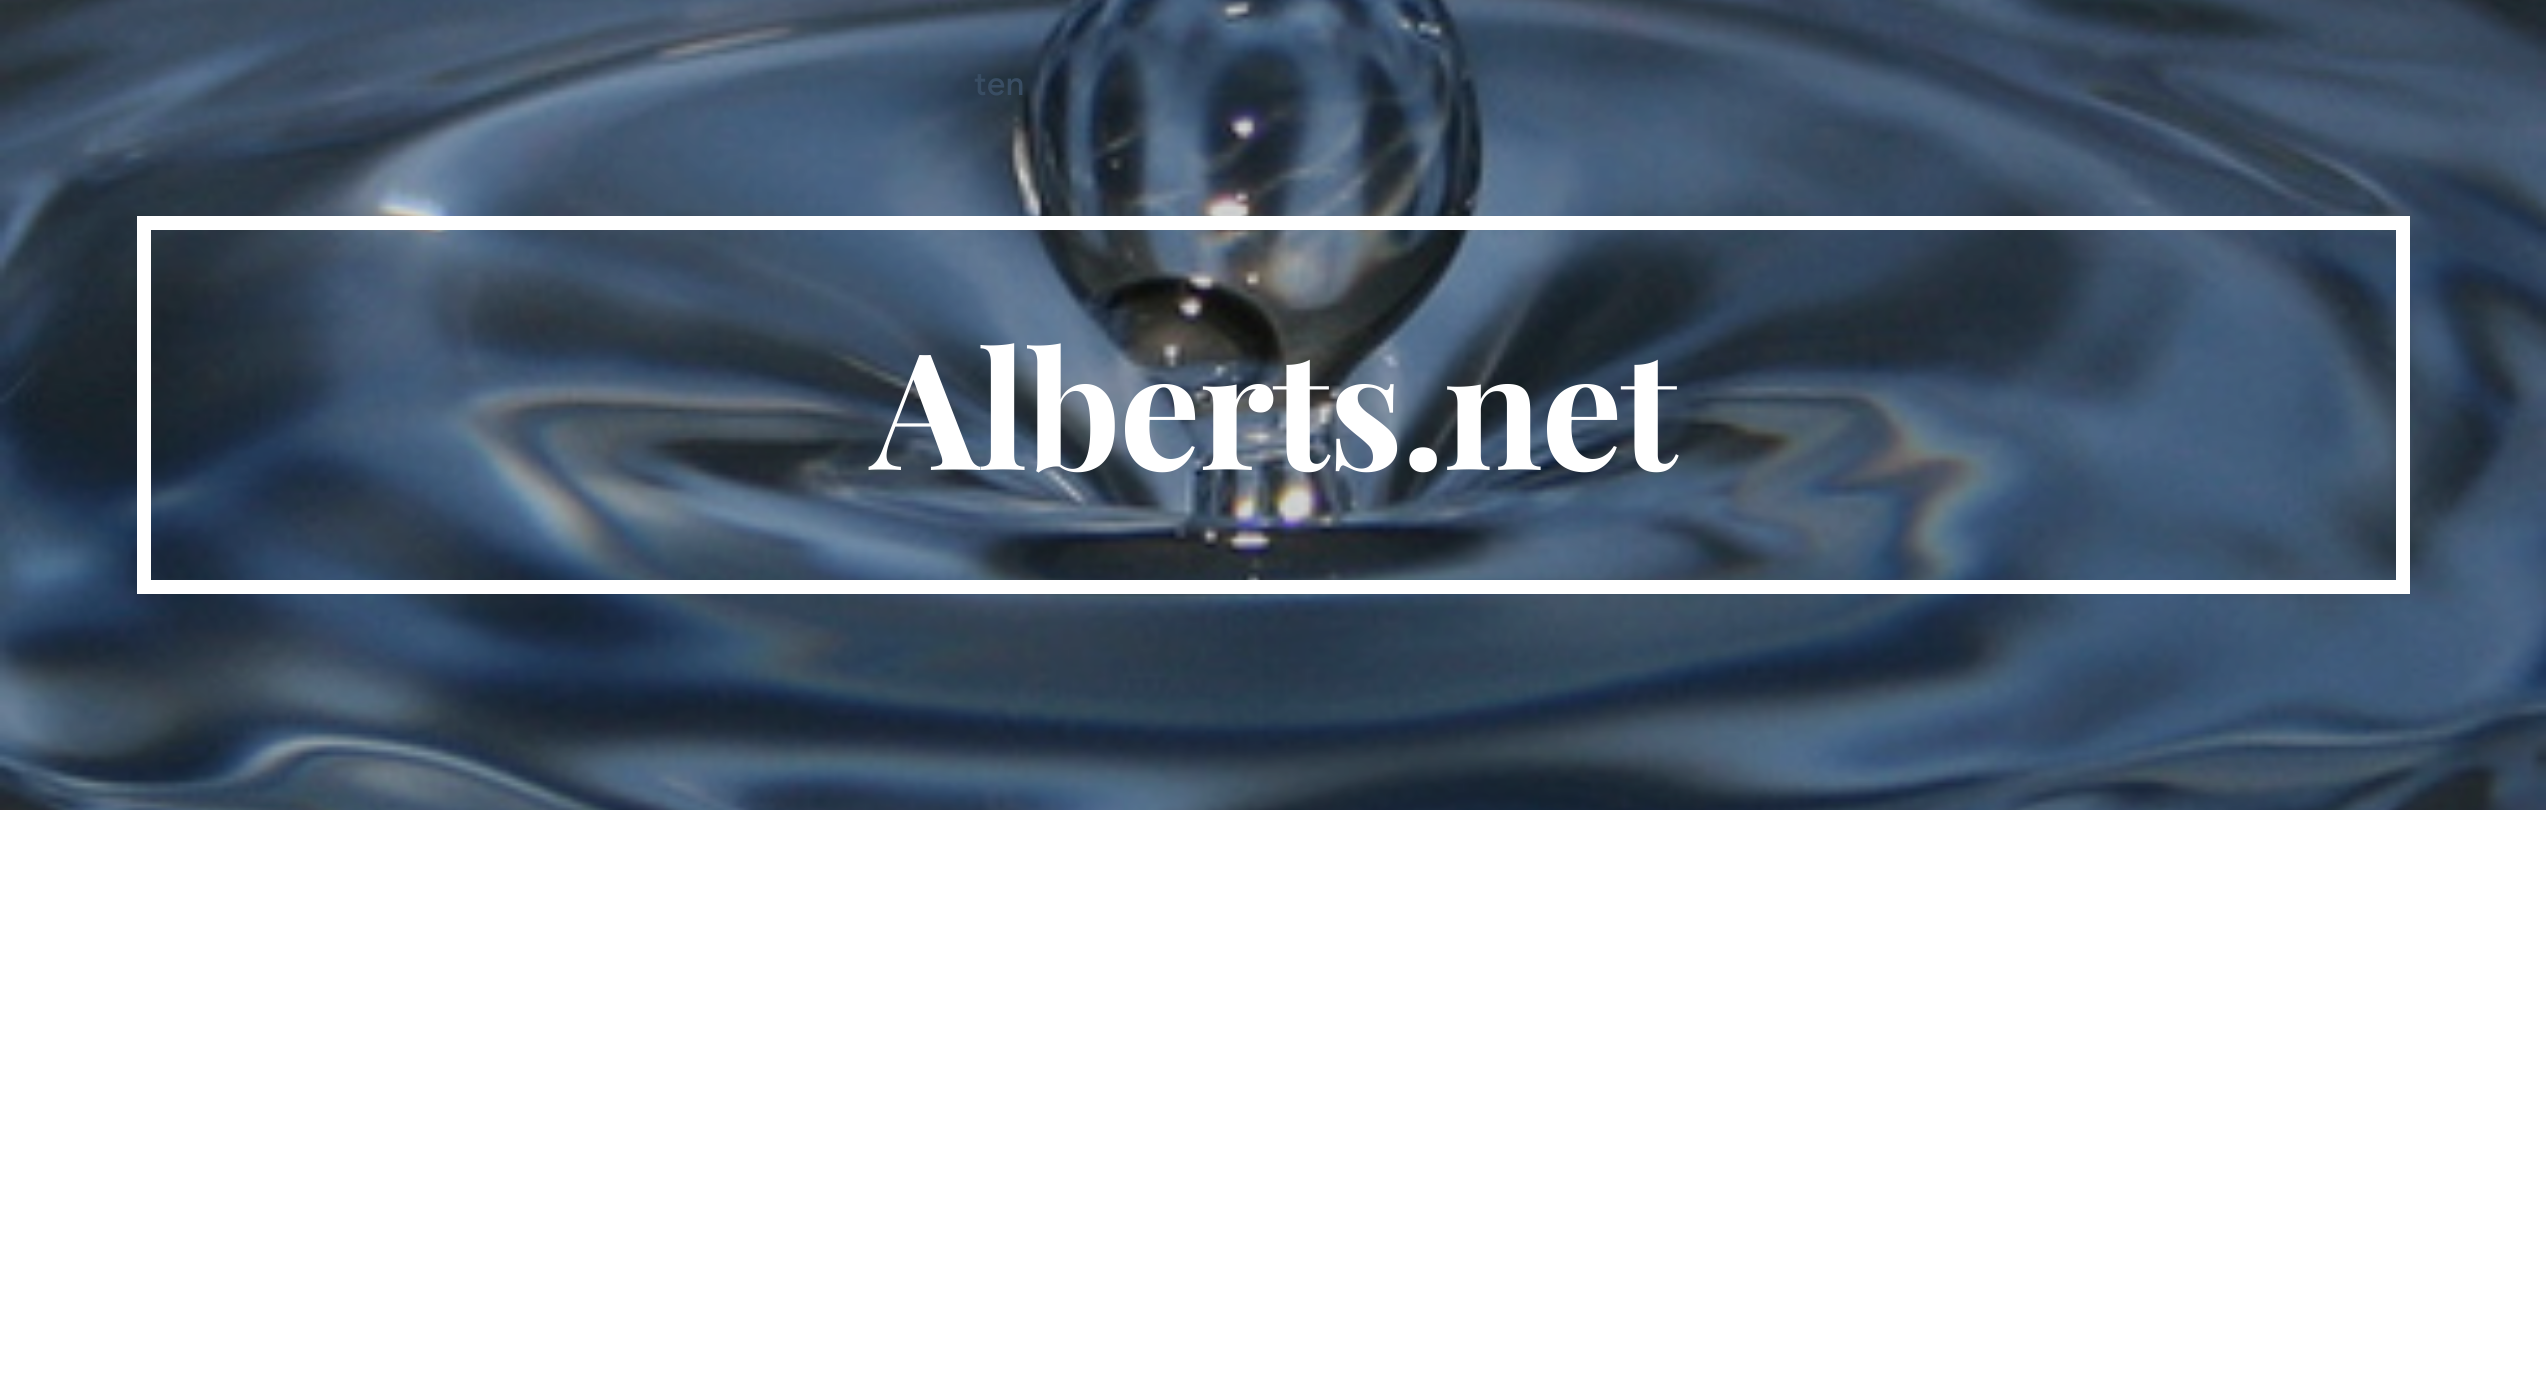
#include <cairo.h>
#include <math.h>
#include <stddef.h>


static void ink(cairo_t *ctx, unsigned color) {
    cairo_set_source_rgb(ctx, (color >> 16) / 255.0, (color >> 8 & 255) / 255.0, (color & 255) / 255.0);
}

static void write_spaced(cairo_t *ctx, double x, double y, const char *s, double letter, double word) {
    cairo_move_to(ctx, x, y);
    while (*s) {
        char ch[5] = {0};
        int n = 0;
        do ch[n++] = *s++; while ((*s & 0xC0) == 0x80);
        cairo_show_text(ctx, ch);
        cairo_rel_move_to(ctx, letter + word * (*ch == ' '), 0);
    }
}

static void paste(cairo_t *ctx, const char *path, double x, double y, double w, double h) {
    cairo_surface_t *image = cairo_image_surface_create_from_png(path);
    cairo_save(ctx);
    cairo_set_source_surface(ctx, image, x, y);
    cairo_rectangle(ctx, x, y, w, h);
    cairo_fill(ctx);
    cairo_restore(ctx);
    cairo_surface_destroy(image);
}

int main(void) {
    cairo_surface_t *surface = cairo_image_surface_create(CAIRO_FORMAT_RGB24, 2546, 1379);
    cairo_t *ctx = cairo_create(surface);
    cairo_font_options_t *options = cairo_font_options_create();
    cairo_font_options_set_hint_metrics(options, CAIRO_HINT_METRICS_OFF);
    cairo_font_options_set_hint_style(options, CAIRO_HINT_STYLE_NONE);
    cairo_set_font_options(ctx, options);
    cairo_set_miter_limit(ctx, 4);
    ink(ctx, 0xFFFFFF);
    cairo_paint(ctx);
    paste(ctx, "media/1.png", 0, 0, 2546, 810);
    cairo_select_font_face(ctx, "Google Sans Medium", CAIRO_FONT_SLANT_NORMAL, CAIRO_FONT_WEIGHT_NORMAL);
    cairo_set_font_size(ctx, 32);
    ink(ctx, 0x394D63);
    write_spaced(ctx, 974, 95, "ten", 0.5, 0);
    cairo_rectangle(ctx, 144, 223, 2259, 364);
    ink(ctx, 0xFFFFFF);
    cairo_set_line_width(ctx, 14);
    cairo_stroke(ctx);
    cairo_select_font_face(ctx, "Playfair Display", CAIRO_FONT_SLANT_NORMAL, CAIRO_FONT_WEIGHT_BOLD);
    cairo_set_font_size(ctx, 162);
    write_spaced(ctx, 871, 470, "Alberts.net", -1.75, 0);
    cairo_surface_write_to_png(surface, "image.png");
    cairo_font_options_destroy(options);
    cairo_destroy(ctx);
    cairo_surface_destroy(surface);
    return 0;
}
